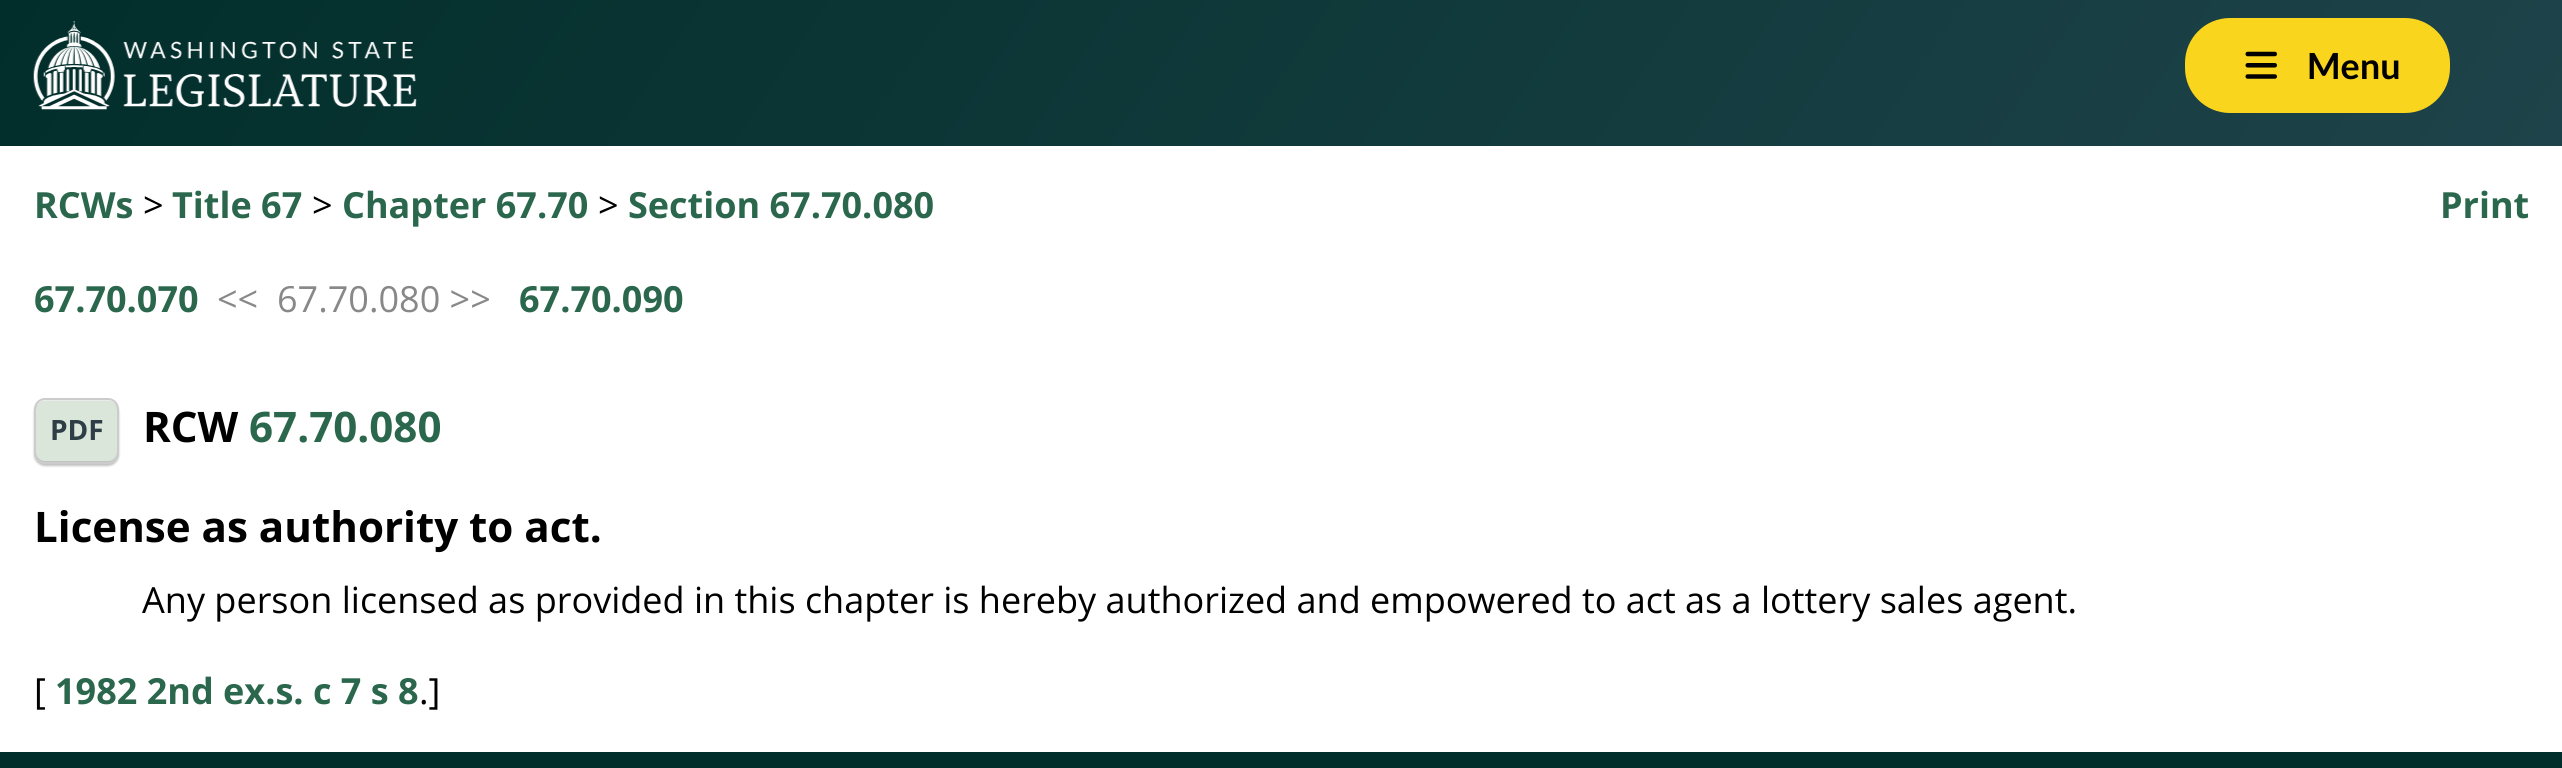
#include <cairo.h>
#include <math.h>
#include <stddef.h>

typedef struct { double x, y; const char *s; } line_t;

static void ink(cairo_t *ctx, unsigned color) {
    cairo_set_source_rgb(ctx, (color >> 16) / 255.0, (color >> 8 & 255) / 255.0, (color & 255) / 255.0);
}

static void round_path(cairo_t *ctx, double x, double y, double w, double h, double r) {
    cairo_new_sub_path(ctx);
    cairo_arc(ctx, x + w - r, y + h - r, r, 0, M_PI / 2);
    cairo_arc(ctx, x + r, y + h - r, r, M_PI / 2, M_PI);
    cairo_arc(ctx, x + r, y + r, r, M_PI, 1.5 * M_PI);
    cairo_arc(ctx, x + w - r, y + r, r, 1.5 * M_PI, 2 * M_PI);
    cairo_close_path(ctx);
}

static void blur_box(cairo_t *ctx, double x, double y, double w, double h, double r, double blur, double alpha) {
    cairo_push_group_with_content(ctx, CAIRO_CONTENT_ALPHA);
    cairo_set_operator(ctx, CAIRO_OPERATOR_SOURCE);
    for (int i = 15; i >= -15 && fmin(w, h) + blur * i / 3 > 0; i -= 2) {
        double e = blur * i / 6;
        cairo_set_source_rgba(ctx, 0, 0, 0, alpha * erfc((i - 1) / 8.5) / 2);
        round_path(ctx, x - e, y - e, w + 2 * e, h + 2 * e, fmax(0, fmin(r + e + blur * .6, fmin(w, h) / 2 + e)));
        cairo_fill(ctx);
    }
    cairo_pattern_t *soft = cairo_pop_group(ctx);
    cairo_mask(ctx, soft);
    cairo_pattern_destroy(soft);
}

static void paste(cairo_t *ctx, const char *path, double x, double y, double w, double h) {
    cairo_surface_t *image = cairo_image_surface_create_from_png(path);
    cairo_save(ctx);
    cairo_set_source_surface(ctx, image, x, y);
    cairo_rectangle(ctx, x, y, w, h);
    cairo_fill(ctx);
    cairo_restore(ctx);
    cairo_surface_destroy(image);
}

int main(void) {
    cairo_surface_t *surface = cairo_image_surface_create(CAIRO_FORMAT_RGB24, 2562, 768);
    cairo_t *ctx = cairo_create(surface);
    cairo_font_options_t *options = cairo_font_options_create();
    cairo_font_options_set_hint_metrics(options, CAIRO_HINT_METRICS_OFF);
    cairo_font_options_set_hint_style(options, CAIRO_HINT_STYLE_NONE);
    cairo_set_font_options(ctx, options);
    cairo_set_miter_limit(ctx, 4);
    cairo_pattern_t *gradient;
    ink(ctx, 0xFFFFFF);
    cairo_paint(ctx);
    gradient = cairo_pattern_create_linear(2196, 690, 367, -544);
    cairo_pattern_add_color_stop_rgba(gradient, 0, 0.118, 0.263, 0.29, 1);
    cairo_pattern_add_color_stop_rgba(gradient, 1, 0.004, 0.18, 0.165, 1);
    cairo_set_source(ctx, gradient);
    cairo_pattern_destroy(gradient);
    cairo_rectangle(ctx, 0, 0, 2562, 146);
    cairo_fill(ctx);
    paste(ctx, "media/1.png", 33, 21, 384, 89);
    ink(ctx, 0xFAD51D);
    round_path(ctx, 2187.5, 20.5, 260, 90, 42.5);
    cairo_fill_preserve(ctx);
    cairo_set_line_width(ctx, 5);
    cairo_stroke(ctx);
    paste(ctx, "media/2.png", 2245, 51, 32, 28);
    cairo_select_font_face(ctx, "Lato", CAIRO_FONT_SLANT_NORMAL, CAIRO_FONT_WEIGHT_BOLD);
    cairo_set_font_size(ctx, 36);
    ink(ctx, 0x000000);
    cairo_move_to(ctx, 2307, 79);
    cairo_show_text(ctx, "Menu");
    cairo_select_font_face(ctx, "Open Sans", CAIRO_FONT_SLANT_NORMAL, CAIRO_FONT_WEIGHT_BOLD);
    ink(ctx, 0x2B674D);
    cairo_move_to(ctx, 34, 218);
    cairo_show_text(ctx, "RCWs");
    cairo_select_font_face(ctx, "Open Sans", CAIRO_FONT_SLANT_NORMAL, CAIRO_FONT_WEIGHT_NORMAL);
    ink(ctx, 0x000000);
    cairo_move_to(ctx, 143, 218);
    cairo_show_text(ctx, ">");
    cairo_select_font_face(ctx, "Open Sans", CAIRO_FONT_SLANT_NORMAL, CAIRO_FONT_WEIGHT_BOLD);
    ink(ctx, 0x2B674D);
    cairo_move_to(ctx, 172, 218);
    cairo_show_text(ctx, "Title 67");
    cairo_select_font_face(ctx, "Open Sans", CAIRO_FONT_SLANT_NORMAL, CAIRO_FONT_WEIGHT_NORMAL);
    ink(ctx, 0x000000);
    cairo_move_to(ctx, 312, 218);
    cairo_show_text(ctx, ">");
    cairo_select_font_face(ctx, "Open Sans", CAIRO_FONT_SLANT_NORMAL, CAIRO_FONT_WEIGHT_BOLD);
    ink(ctx, 0x2B674D);
    cairo_move_to(ctx, 342, 218);
    cairo_show_text(ctx, "Chapter 67.70");
    cairo_select_font_face(ctx, "Open Sans", CAIRO_FONT_SLANT_NORMAL, CAIRO_FONT_WEIGHT_NORMAL);
    ink(ctx, 0x000000);
    cairo_move_to(ctx, 598, 218);
    cairo_show_text(ctx, ">");
    cairo_select_font_face(ctx, "Open Sans", CAIRO_FONT_SLANT_NORMAL, CAIRO_FONT_WEIGHT_BOLD);
    ink(ctx, 0x2B674D);
    {
        static const line_t items[] = {
            {628, 218, "Section 67.70.080"},
            {2440, 218, "Print"},
            {34, 312, "67.70.070"},
        };
        for (size_t i = 0; i < sizeof items / sizeof *items; i++) {
            cairo_move_to(ctx, items[i].x, items[i].y);
            cairo_show_text(ctx, items[i].s);
        }
    }
    cairo_select_font_face(ctx, "Open Sans", CAIRO_FONT_SLANT_NORMAL, CAIRO_FONT_WEIGHT_NORMAL);
    ink(ctx, 0x888888);
    cairo_move_to(ctx, 217, 312);
    cairo_show_text(ctx, "<<");
    cairo_move_to(ctx, 277, 312);
    cairo_show_text(ctx, "67.70.080 >>");
    cairo_select_font_face(ctx, "Open Sans", CAIRO_FONT_SLANT_NORMAL, CAIRO_FONT_WEIGHT_BOLD);
    ink(ctx, 0x2B674D);
    cairo_move_to(ctx, 519, 312);
    cairo_show_text(ctx, "67.70.090");
    ink(ctx, 0x333333);
    blur_box(ctx, 34, 401, 85, 65, 11, 1, 0.3);
    ink(ctx, 0xDBE6DB);
    round_path(ctx, 36, 401, 81, 60, 9);
    cairo_fill(ctx);
    round_path(ctx, 35, 399, 83, 64, 10);
    ink(ctx, 0xCCCCCC);
    cairo_set_line_width(ctx, 2);
    cairo_stroke(ctx);
    cairo_set_font_size(ctx, 28);
    ink(ctx, 0x2F3E46);
    cairo_move_to(ctx, 50, 440);
    cairo_show_text(ctx, "PDF");
    cairo_set_font_size(ctx, 42.1);
    ink(ctx, 0x000000);
    cairo_move_to(ctx, 143, 442);
    cairo_show_text(ctx, "RCW");
    ink(ctx, 0x2B674D);
    cairo_move_to(ctx, 249, 442);
    cairo_show_text(ctx, "67.70.080");
    ink(ctx, 0x000000);
    cairo_move_to(ctx, 34, 542);
    cairo_show_text(ctx, "License as authority to act.");
    cairo_select_font_face(ctx, "Open Sans", CAIRO_FONT_SLANT_NORMAL, CAIRO_FONT_WEIGHT_NORMAL);
    cairo_set_font_size(ctx, 36);
    cairo_move_to(ctx, 142, 613);
    cairo_show_text(ctx, "Any person licensed as provided in this chapter is hereby authorized and empowered to act as a lottery sales agent.");
    cairo_move_to(ctx, 34, 704);
    cairo_show_text(ctx, "[");
    cairo_select_font_face(ctx, "Open Sans", CAIRO_FONT_SLANT_NORMAL, CAIRO_FONT_WEIGHT_BOLD);
    ink(ctx, 0x2B674D);
    cairo_move_to(ctx, 55, 704);
    cairo_show_text(ctx, "1982 2nd ex.s. c 7 s 8");
    cairo_select_font_face(ctx, "Open Sans", CAIRO_FONT_SLANT_NORMAL, CAIRO_FONT_WEIGHT_NORMAL);
    ink(ctx, 0x000000);
    cairo_move_to(ctx, 419, 704);
    cairo_show_text(ctx, ".]");
    ink(ctx, 0x012E2A);
    cairo_rectangle(ctx, 0, 752, 2562, 16);
    cairo_fill(ctx);
    cairo_surface_write_to_png(surface, "image.png");
    cairo_font_options_destroy(options);
    cairo_destroy(ctx);
    cairo_surface_destroy(surface);
    return 0;
}
